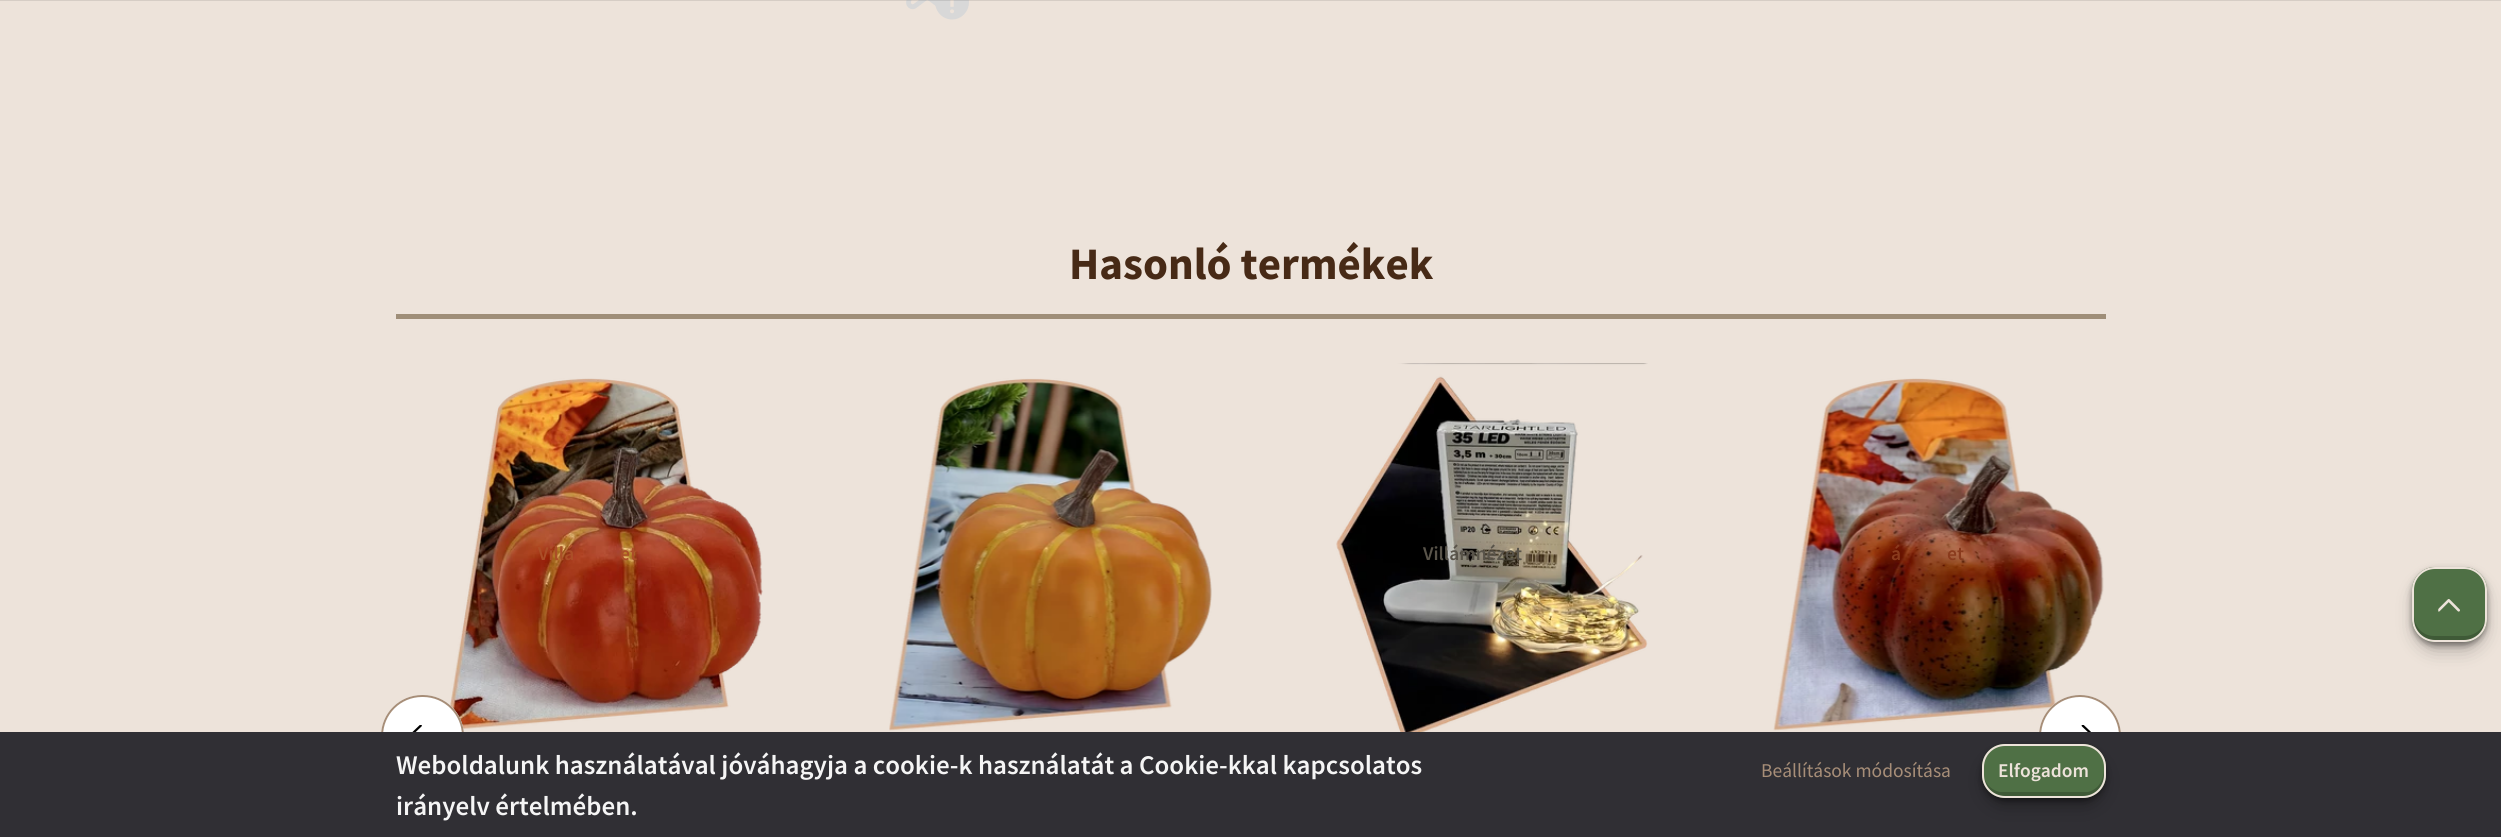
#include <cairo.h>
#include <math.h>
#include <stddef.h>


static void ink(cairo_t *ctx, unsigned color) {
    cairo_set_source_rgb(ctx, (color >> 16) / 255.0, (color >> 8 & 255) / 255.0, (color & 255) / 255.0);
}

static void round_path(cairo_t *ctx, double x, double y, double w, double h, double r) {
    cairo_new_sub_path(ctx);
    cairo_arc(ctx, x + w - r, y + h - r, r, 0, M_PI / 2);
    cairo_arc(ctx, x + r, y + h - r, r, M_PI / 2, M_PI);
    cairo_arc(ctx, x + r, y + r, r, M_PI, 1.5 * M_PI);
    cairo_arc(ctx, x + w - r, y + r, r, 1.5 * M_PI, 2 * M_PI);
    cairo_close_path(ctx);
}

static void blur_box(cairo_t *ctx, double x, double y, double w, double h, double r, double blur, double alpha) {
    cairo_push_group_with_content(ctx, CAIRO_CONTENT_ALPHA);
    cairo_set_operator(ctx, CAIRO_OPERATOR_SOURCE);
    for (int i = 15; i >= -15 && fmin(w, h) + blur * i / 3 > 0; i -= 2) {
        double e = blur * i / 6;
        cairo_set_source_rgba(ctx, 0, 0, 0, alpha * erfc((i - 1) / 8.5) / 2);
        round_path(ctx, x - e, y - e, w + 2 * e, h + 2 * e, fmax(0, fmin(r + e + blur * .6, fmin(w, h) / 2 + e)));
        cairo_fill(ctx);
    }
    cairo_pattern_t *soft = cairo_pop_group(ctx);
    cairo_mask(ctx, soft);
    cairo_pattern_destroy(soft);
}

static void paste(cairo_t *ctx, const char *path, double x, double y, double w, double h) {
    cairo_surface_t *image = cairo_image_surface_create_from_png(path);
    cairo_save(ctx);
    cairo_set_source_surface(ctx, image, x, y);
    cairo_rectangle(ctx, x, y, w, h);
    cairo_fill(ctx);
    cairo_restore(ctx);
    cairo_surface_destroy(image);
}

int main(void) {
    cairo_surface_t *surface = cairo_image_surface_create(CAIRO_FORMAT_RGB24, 2501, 837);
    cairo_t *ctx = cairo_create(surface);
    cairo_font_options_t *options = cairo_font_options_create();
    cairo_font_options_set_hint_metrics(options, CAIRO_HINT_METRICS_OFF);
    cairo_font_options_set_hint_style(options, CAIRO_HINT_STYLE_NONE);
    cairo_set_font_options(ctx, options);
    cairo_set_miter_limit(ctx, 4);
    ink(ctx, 0xEDE3DA);
    cairo_paint(ctx);
    paste(ctx, "media/1.png", 906, 0, 63, 20);
    cairo_set_source_rgba(ctx, 0, 0, 0, 0.1);
    cairo_rectangle(ctx, 0, 0, 2501, 1);
    cairo_fill(ctx);
    ink(ctx, 0x9F8E78);
    cairo_rectangle(ctx, 396, 314, 1710, 5);
    cairo_fill(ctx);
    cairo_select_font_face(ctx, "Source Sans Pro", CAIRO_FONT_SLANT_NORMAL, CAIRO_FONT_WEIGHT_BOLD);
    cairo_set_font_size(ctx, 45);
    ink(ctx, 0x472A16);
    cairo_move_to(ctx, 1069, 279);
    cairo_show_text(ctx, "Hasonló termékek");
    paste(ctx, "media/2.png", 450, 378, 313, 351);
    cairo_select_font_face(ctx, "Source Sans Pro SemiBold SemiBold", CAIRO_FONT_SLANT_NORMAL, CAIRO_FONT_WEIGHT_NORMAL);
    cairo_set_font_size(ctx, 19.5);
    ink(ctx, 0xAB4E27);
    cairo_move_to(ctx, 538, 560);
    cairo_show_text(ctx, "Villá");
    cairo_move_to(ctx, 620, 560);
    cairo_show_text(ctx, "et");
    paste(ctx, "media/3.png", 889, 378, 323, 353);
    paste(ctx, "media/4.png", 1336, 363, 312, 369);
    ink(ctx, 0x59544A);
    cairo_move_to(ctx, 1423, 560);
    cairo_show_text(ctx, "Villámnézet");
    paste(ctx, "media/5.png", 1773, 378, 331, 353);
    ink(ctx, 0x8A3B1D);
    cairo_move_to(ctx, 1891, 560);
    cairo_show_text(ctx, "á");
    cairo_move_to(ctx, 1947, 560);
    cairo_show_text(ctx, "et");
    ink(ctx, 0xFFFFFF);
    round_path(ctx, 381, 695, 83, 82, 41);
    cairo_fill(ctx);
    paste(ctx, "media/6.png", 412, 725, 10, 7);
    round_path(ctx, 382, 696, 81, 80, 40);
    ink(ctx, 0xA78E78);
    cairo_stroke(ctx);
    ink(ctx, 0xFFFFFF);
    cairo_arc(ctx, 2080, 736, 41, 0, 2 * M_PI);
    cairo_fill(ctx);
    paste(ctx, "media/7.png", 2081, 725, 10, 7);
    cairo_arc(ctx, 2080, 736, 40, 0, 2 * M_PI);
    ink(ctx, 0xA78E78);
    cairo_stroke(ctx);
    ink(ctx, 0x000000);
    blur_box(ctx, 2417, 582, 66, 66, 18, 10, 0.3);
    blur_box(ctx, 2412, 570, 75, 75, 23, 3, 0.4);
    ink(ctx, 0x4F7045);
    round_path(ctx, 2412, 567, 75, 75, 23);
    cairo_fill(ctx);
    ink(ctx, 0x3F5A37);
    cairo_new_path(ctx);
    cairo_move_to(ctx, 2414, 615);
    cairo_line_to(ctx, 2414, 620);
    cairo_curve_to(ctx, 2414, 632, 2423, 641, 2435, 641);
    cairo_line_to(ctx, 2465, 641);
    cairo_curve_to(ctx, 2477, 641, 2486, 632, 2486, 620);
    cairo_line_to(ctx, 2486, 615);
    cairo_curve_to(ctx, 2486, 627, 2476, 636, 2464, 636);
    cairo_line_to(ctx, 2434, 636);
    cairo_curve_to(ctx, 2423, 636, 2414, 627, 2414, 615);
    cairo_close_path(ctx);
    cairo_fill(ctx);
    round_path(ctx, 2413, 568, 73, 73, 22);
    ink(ctx, 0xEDE3DA);
    cairo_stroke(ctx);
    paste(ctx, "media/8.png", 2438, 599, 22, 13);
    ink(ctx, 0x302F34);
    cairo_rectangle(ctx, 0, 732, 2501, 105);
    cairo_fill(ctx);
    cairo_set_font_size(ctx, 27);
    ink(ctx, 0xF5F5F5);
    cairo_move_to(ctx, 396, 774);
    cairo_show_text(ctx, "Weboldalunk használatával jóváhagyja a cookie-k használatát a Cookie-kkal kapcsolatos");
    cairo_move_to(ctx, 396, 815);
    cairo_show_text(ctx, "irányelv értelmében.");
    cairo_select_font_face(ctx, "Source Sans Pro", CAIRO_FONT_SLANT_NORMAL, CAIRO_FONT_WEIGHT_NORMAL);
    cairo_set_font_size(ctx, 19.5);
    ink(ctx, 0xA78E78);
    cairo_move_to(ctx, 1761, 777);
    cairo_show_text(ctx, "Beállítások módosítása");
    ink(ctx, 0x000000);
    blur_box(ctx, 1986, 759, 116, 45, 18, 10, 0.3);
    blur_box(ctx, 1982, 747, 124, 54, 23, 3, 0.4);
    ink(ctx, 0x4F7045);
    round_path(ctx, 1982, 744, 124, 54, 23);
    cairo_fill(ctx);
    ink(ctx, 0x3F5A37);
    cairo_new_path(ctx);
    cairo_move_to(ctx, 1983, 771);
    cairo_line_to(ctx, 1983, 776);
    cairo_curve_to(ctx, 1983, 788, 1992, 797, 2004, 797);
    cairo_line_to(ctx, 2084, 797);
    cairo_curve_to(ctx, 2096, 797, 2105, 788, 2105, 776);
    cairo_line_to(ctx, 2105, 767);
    cairo_curve_to(ctx, 2105, 765, 2105, 762, 2104, 760);
    cairo_curve_to(ctx, 2105, 773, 2103, 788, 2088, 792);
    cairo_line_to(ctx, 2071, 792);
    cairo_line_to(ctx, 2000, 792);
    cairo_curve_to(ctx, 1990, 790, 1983, 781, 1983, 771);
    cairo_close_path(ctx);
    cairo_fill(ctx);
    round_path(ctx, 1983, 745, 122, 52, 22);
    ink(ctx, 0xEDE3DA);
    cairo_stroke(ctx);
    cairo_select_font_face(ctx, "Source Sans Pro SemiBold SemiBold", CAIRO_FONT_SLANT_NORMAL, CAIRO_FONT_WEIGHT_NORMAL);
    cairo_move_to(ctx, 1998, 777);
    cairo_show_text(ctx, "Elfogadom");
    cairo_surface_write_to_png(surface, "image.png");
    cairo_font_options_destroy(options);
    cairo_destroy(ctx);
    cairo_surface_destroy(surface);
    return 0;
}
